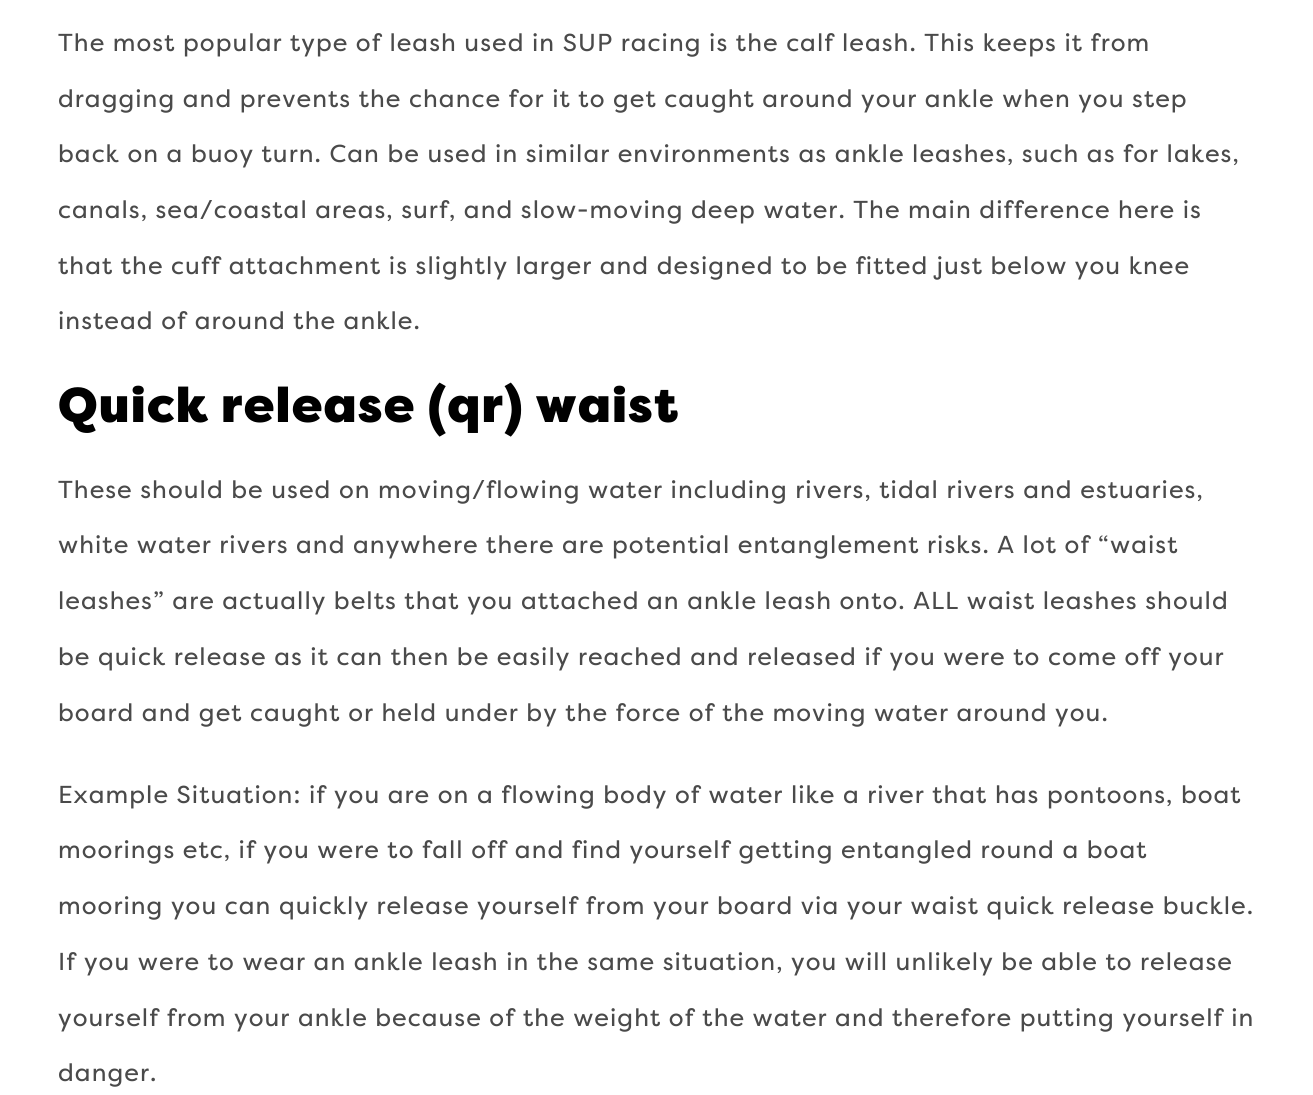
#include <cairo.h>
#include <math.h>
#include <stddef.h>

typedef struct { double x, y; const char *s; } line_t;

static void ink(cairo_t *ctx, unsigned color) {
    cairo_set_source_rgb(ctx, (color >> 16) / 255.0, (color >> 8 & 255) / 255.0, (color & 255) / 255.0);
}

static void write_spaced(cairo_t *ctx, double x, double y, const char *s, double letter, double word) {
    cairo_move_to(ctx, x, y);
    while (*s) {
        char ch[5] = {0};
        int n = 0;
        do ch[n++] = *s++; while ((*s & 0xC0) == 0x80);
        cairo_show_text(ctx, ch);
        cairo_rel_move_to(ctx, letter + word * (*ch == ' '), 0);
    }
}

int main(void) {
    cairo_surface_t *surface = cairo_image_surface_create(CAIRO_FORMAT_RGB24, 1313, 1095);
    cairo_t *ctx = cairo_create(surface);
    cairo_font_options_t *options = cairo_font_options_create();
    cairo_font_options_set_hint_metrics(options, CAIRO_HINT_METRICS_OFF);
    cairo_font_options_set_hint_style(options, CAIRO_HINT_STYLE_NONE);
    cairo_set_font_options(ctx, options);
    cairo_set_miter_limit(ctx, 4);
    ink(ctx, 0xFFFFFF);
    cairo_paint(ctx);
    cairo_select_font_face(ctx, "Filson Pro", CAIRO_FONT_SLANT_NORMAL, CAIRO_FONT_WEIGHT_NORMAL);
    cairo_set_font_size(ctx, 24.5);
    ink(ctx, 0x4A4A4A);
    {
        static const line_t items[] = {
            {58, 51, "The most popular type of leash used in SUP racing is the calf leash. This keeps it from"},
            {58, 107, "dragging and prevents the chance for it to get caught around your ankle when you step"},
            {58, 162, "back on a buoy turn. Can be used in similar environments as ankle leashes, such as for lakes,"},
            {58, 218, "canals, sea/coastal areas, surf, and slow-moving deep water. The main difference here is"},
            {58, 274, "that the cuff attachment is slightly larger and designed to be fitted just below you knee"},
            {58, 329, "instead of around the ankle."},
        };
        for (size_t i = 0; i < sizeof items / sizeof *items; i++) {
            write_spaced(ctx, items[i].x, items[i].y, items[i].s, 1.05, 0);
        }
    }
    cairo_select_font_face(ctx, "Filson Pro Black", CAIRO_FONT_SLANT_NORMAL, CAIRO_FONT_WEIGHT_NORMAL);
    cairo_set_font_size(ctx, 49);
    ink(ctx, 0x000000);
    write_spaced(ctx, 58, 422, "Quick release (qr) waist", 1.25, 0);
    cairo_select_font_face(ctx, "Filson Pro", CAIRO_FONT_SLANT_NORMAL, CAIRO_FONT_WEIGHT_NORMAL);
    cairo_set_font_size(ctx, 24.5);
    ink(ctx, 0x4A4A4A);
    {
        static const line_t items[] = {
            {58, 498, "These should be used on moving/flowing water including rivers, tidal rivers and estuaries,"},
            {58, 553, "white water rivers and anywhere there are potential entanglement risks. A lot of “waist"},
            {58, 609, "leashes” are actually belts that you attached an ankle leash onto. ALL waist leashes should"},
            {58, 665, "be quick release as it can then be easily reached and released if you were to come off your"},
            {58, 721, "board and get caught or held under by the force of the moving water around you."},
            {58, 803, "Example Situation: if you are on a flowing body of water like a river that has pontoons, boat"},
            {58, 858, "moorings etc, if you were to fall off and find yourself getting entangled round a boat"},
            {58, 914, "mooring you can quickly release yourself from your board via your waist quick release buckle."},
            {58, 970, "If you were to wear an ankle leash in the same situation, you will unlikely be able to release"},
            {58, 1026, "yourself from your ankle because of the weight of the water and therefore putting yourself in"},
            {58, 1081, "danger."},
        };
        for (size_t i = 0; i < sizeof items / sizeof *items; i++) {
            write_spaced(ctx, items[i].x, items[i].y, items[i].s, 1.05, 0);
        }
    }
    cairo_surface_write_to_png(surface, "image.png");
    cairo_font_options_destroy(options);
    cairo_destroy(ctx);
    cairo_surface_destroy(surface);
    return 0;
}
